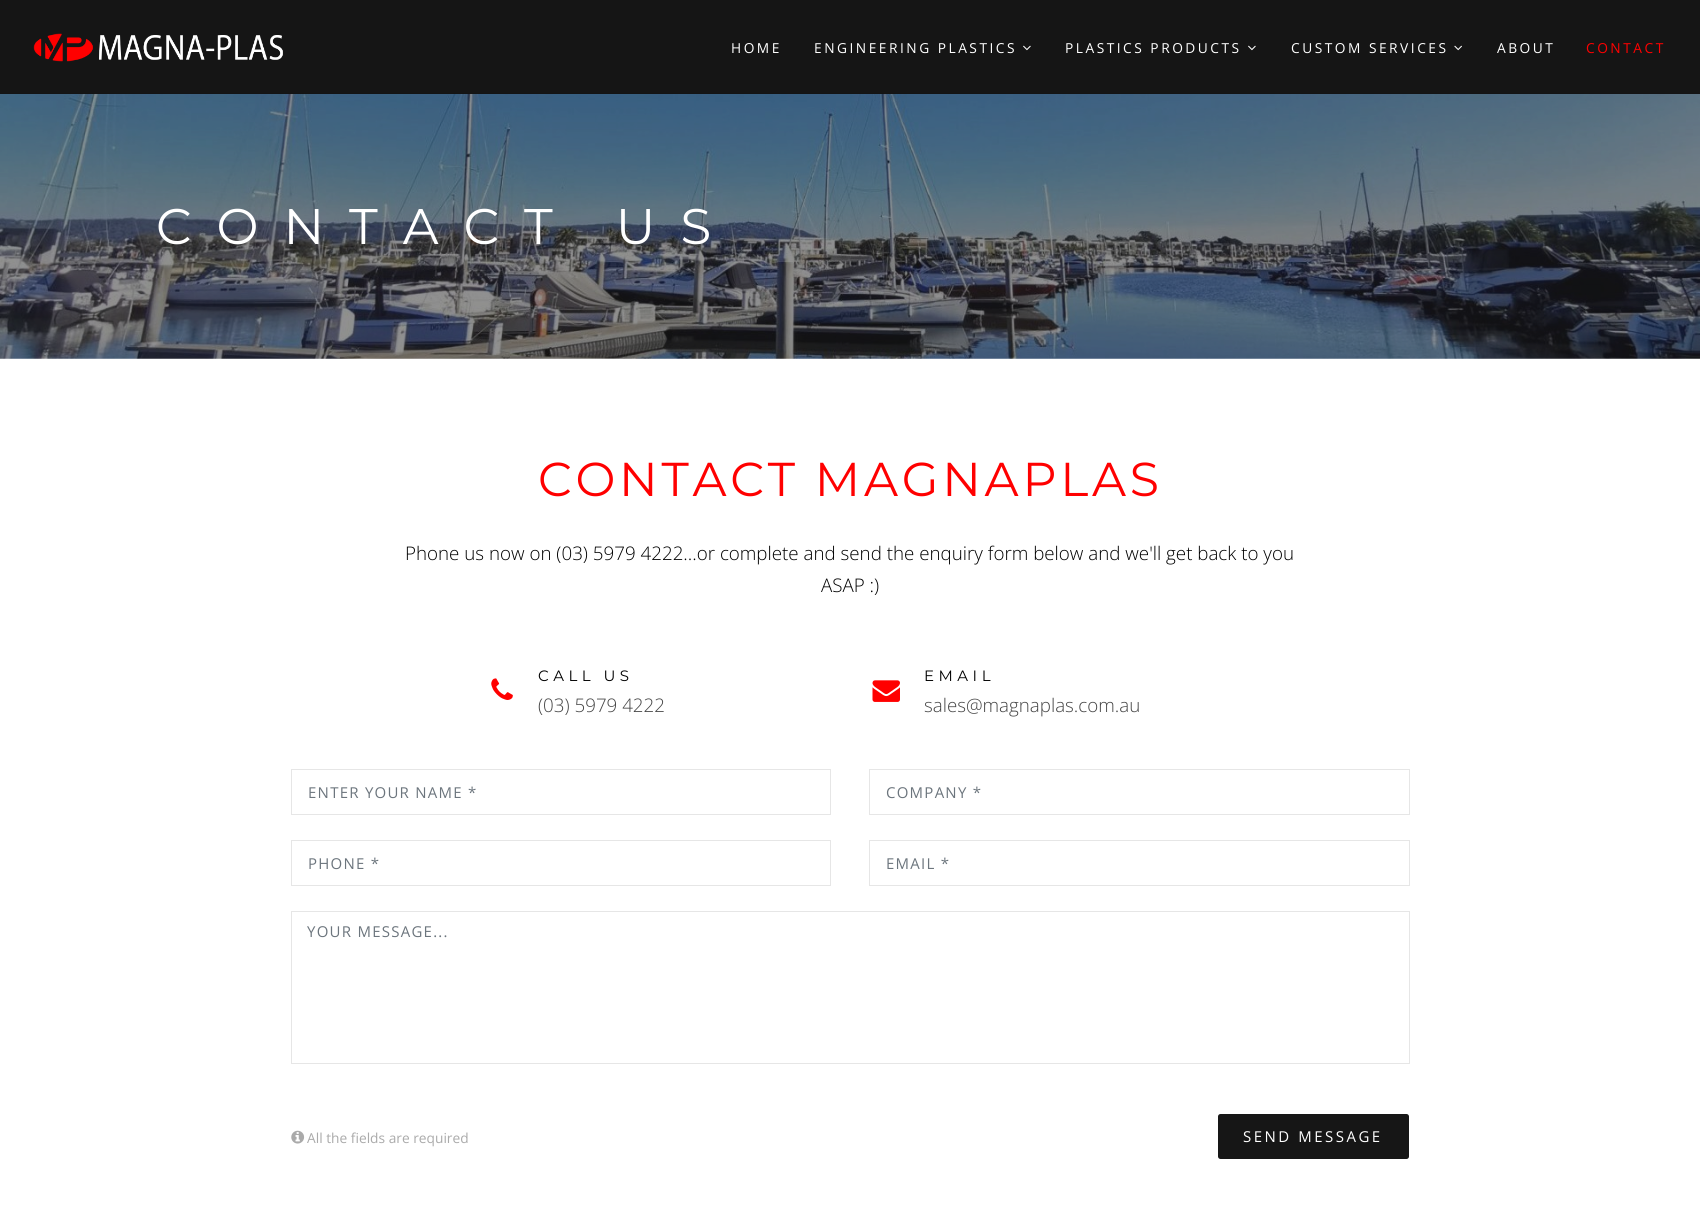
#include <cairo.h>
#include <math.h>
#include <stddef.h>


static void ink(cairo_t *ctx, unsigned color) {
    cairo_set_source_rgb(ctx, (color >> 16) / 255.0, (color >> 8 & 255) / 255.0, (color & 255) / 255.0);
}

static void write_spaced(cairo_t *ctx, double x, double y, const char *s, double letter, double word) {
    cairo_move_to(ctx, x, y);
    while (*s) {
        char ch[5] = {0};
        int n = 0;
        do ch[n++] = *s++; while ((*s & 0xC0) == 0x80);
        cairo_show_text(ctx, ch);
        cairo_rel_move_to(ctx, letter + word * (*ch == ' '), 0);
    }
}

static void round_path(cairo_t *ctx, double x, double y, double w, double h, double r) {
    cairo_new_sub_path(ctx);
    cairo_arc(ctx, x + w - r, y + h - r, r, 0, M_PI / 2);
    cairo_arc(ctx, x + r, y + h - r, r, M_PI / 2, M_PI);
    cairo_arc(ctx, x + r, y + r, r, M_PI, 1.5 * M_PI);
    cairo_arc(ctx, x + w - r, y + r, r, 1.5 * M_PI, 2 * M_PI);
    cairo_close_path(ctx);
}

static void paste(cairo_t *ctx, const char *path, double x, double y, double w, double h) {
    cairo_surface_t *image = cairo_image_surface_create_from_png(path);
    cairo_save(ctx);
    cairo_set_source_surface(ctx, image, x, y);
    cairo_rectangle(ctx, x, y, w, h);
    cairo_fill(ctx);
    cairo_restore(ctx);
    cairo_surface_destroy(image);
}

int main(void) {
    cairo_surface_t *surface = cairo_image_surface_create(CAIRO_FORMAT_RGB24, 1700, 1220);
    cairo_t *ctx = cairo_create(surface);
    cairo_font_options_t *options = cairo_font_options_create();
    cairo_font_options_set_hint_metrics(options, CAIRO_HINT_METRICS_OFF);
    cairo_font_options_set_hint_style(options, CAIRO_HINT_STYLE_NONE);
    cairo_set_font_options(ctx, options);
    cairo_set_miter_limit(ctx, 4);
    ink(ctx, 0xFFFFFF);
    cairo_paint(ctx);
    paste(ctx, "media/4.png", 0, 93, 1700, 266);
    cairo_set_source_rgba(ctx, 0.039, 0.039, 0.039, 0.95);
    cairo_rectangle(ctx, 0, 0, 1700, 94);
    cairo_fill(ctx);
    paste(ctx, "media/1.png", 33, 33, 250, 29);
    cairo_select_font_face(ctx, "Open Sans", CAIRO_FONT_SLANT_NORMAL, CAIRO_FONT_WEIGHT_NORMAL);
    cairo_set_font_size(ctx, 13.75);
    ink(ctx, 0xFFFFFF);
    write_spaced(ctx, 731, 53, "HOME", 2.5, 0);
    write_spaced(ctx, 814, 53, "ENGINEERING PLASTICS", 2.5, 0);
    paste(ctx, "media/2.png", 1023, 45, 8, 6);
    write_spaced(ctx, 1065, 53, "PLASTICS PRODUCTS", 2.5, 0);
    paste(ctx, "media/2.png", 1248, 45, 8, 6);
    write_spaced(ctx, 1291, 53, "CUSTOM SERVICES", 2.5, 0);
    paste(ctx, "media/3.png", 1454, 45, 8, 6);
    write_spaced(ctx, 1497, 53, "ABOUT", 2.5, 0);
    ink(ctx, 0xFF0000);
    write_spaced(ctx, 1586, 53, "CONTACT", 2.5, 0);
    cairo_select_font_face(ctx, "Montserrat", CAIRO_FONT_SLANT_NORMAL, CAIRO_FONT_WEIGHT_NORMAL);
    cairo_set_font_size(ctx, 50);
    ink(ctx, 0xFFFFFF);
    write_spaced(ctx, 156, 244, "CONTACT US", 25, 0);
    cairo_set_font_size(ctx, 47.5);
    ink(ctx, 0xFF0000);
    write_spaced(ctx, 538, 496, "CONTACT MAGNAPLAS", 3.75, 0);
    cairo_select_font_face(ctx, "Open Sans Light", CAIRO_FONT_SLANT_NORMAL, CAIRO_FONT_WEIGHT_NORMAL);
    cairo_set_font_size(ctx, 18.75);
    ink(ctx, 0x000000);
    cairo_move_to(ctx, 405, 560);
    cairo_show_text(ctx, "Phone us now on (03) 5979 4222...or complete and send the enquiry form below and we'll get back to you");
    cairo_move_to(ctx, 821, 592);
    cairo_show_text(ctx, "ASAP :)");
    cairo_select_font_face(ctx, "Montserrat", CAIRO_FONT_SLANT_NORMAL, CAIRO_FONT_WEIGHT_NORMAL);
    cairo_set_font_size(ctx, 15);
    write_spaced(ctx, 538, 681, "CALL US", 4.5, 0);
    paste(ctx, "media/5.png", 491, 678, 22, 22);
    cairo_select_font_face(ctx, "Open Sans Light", CAIRO_FONT_SLANT_NORMAL, CAIRO_FONT_WEIGHT_NORMAL);
    cairo_set_font_size(ctx, 18.75);
    ink(ctx, 0x444444);
    cairo_move_to(ctx, 538, 712);
    cairo_show_text(ctx, "(03) 5979 4222");
    cairo_select_font_face(ctx, "Montserrat", CAIRO_FONT_SLANT_NORMAL, CAIRO_FONT_WEIGHT_NORMAL);
    cairo_set_font_size(ctx, 15);
    ink(ctx, 0x000000);
    write_spaced(ctx, 924, 681, "EMAIL", 4.5, 0);
    paste(ctx, "media/6.png", 872, 680, 28, 22);
    cairo_select_font_face(ctx, "Open Sans Light", CAIRO_FONT_SLANT_NORMAL, CAIRO_FONT_WEIGHT_NORMAL);
    cairo_set_font_size(ctx, 18.75);
    ink(ctx, 0x444444);
    cairo_move_to(ctx, 924, 712);
    cairo_show_text(ctx, "sales@magnaplas.com.au");
    cairo_rectangle(ctx, 291.5, 769.5, 539, 45);
    ink(ctx, 0xE6E6E6);
    cairo_set_line_width(ctx, 1);
    cairo_stroke(ctx);
    cairo_select_font_face(ctx, "Open Sans", CAIRO_FONT_SLANT_NORMAL, CAIRO_FONT_WEIGHT_NORMAL);
    cairo_set_font_size(ctx, 15);
    ink(ctx, 0x6C757D);
    write_spaced(ctx, 308, 798, "ENTER YOUR NAME *", 1.25, 0);
    cairo_rectangle(ctx, 869.5, 769.5, 540, 45);
    ink(ctx, 0xE6E6E6);
    cairo_stroke(ctx);
    ink(ctx, 0x6C757D);
    write_spaced(ctx, 886, 798, "COMPANY *", 1.25, 0);
    cairo_rectangle(ctx, 291.5, 840.5, 539, 45);
    ink(ctx, 0xE6E6E6);
    cairo_stroke(ctx);
    ink(ctx, 0x6C757D);
    write_spaced(ctx, 308, 869, "PHONE *", 1.25, 0);
    cairo_rectangle(ctx, 869.5, 840.5, 540, 45);
    ink(ctx, 0xE6E6E6);
    cairo_stroke(ctx);
    ink(ctx, 0x6C757D);
    write_spaced(ctx, 886, 869, "EMAIL *", 1.25, 0);
    cairo_rectangle(ctx, 291.5, 911.5, 1118, 152);
    ink(ctx, 0xE6E6E6);
    cairo_stroke(ctx);
    ink(ctx, 0x6C757D);
    write_spaced(ctx, 307, 937, "YOUR MESSAGE...", 1.25, 0);
    paste(ctx, "media/7.png", 291, 1130, 14, 14);
    cairo_set_font_size(ctx, 13.75);
    ink(ctx, 0xAAAAAA);
    cairo_move_to(ctx, 307, 1143);
    cairo_show_text(ctx, "All the fields are required");
    ink(ctx, 0x161616);
    round_path(ctx, 1218, 1114, 191, 45, 2.5);
    cairo_fill(ctx);
    cairo_set_font_size(ctx, 15);
    ink(ctx, 0xFFFFFF);
    write_spaced(ctx, 1243, 1142, "SEND MESSAGE", 2.5, 0);
    cairo_surface_write_to_png(surface, "image.png");
    cairo_font_options_destroy(options);
    cairo_destroy(ctx);
    cairo_surface_destroy(surface);
    return 0;
}
